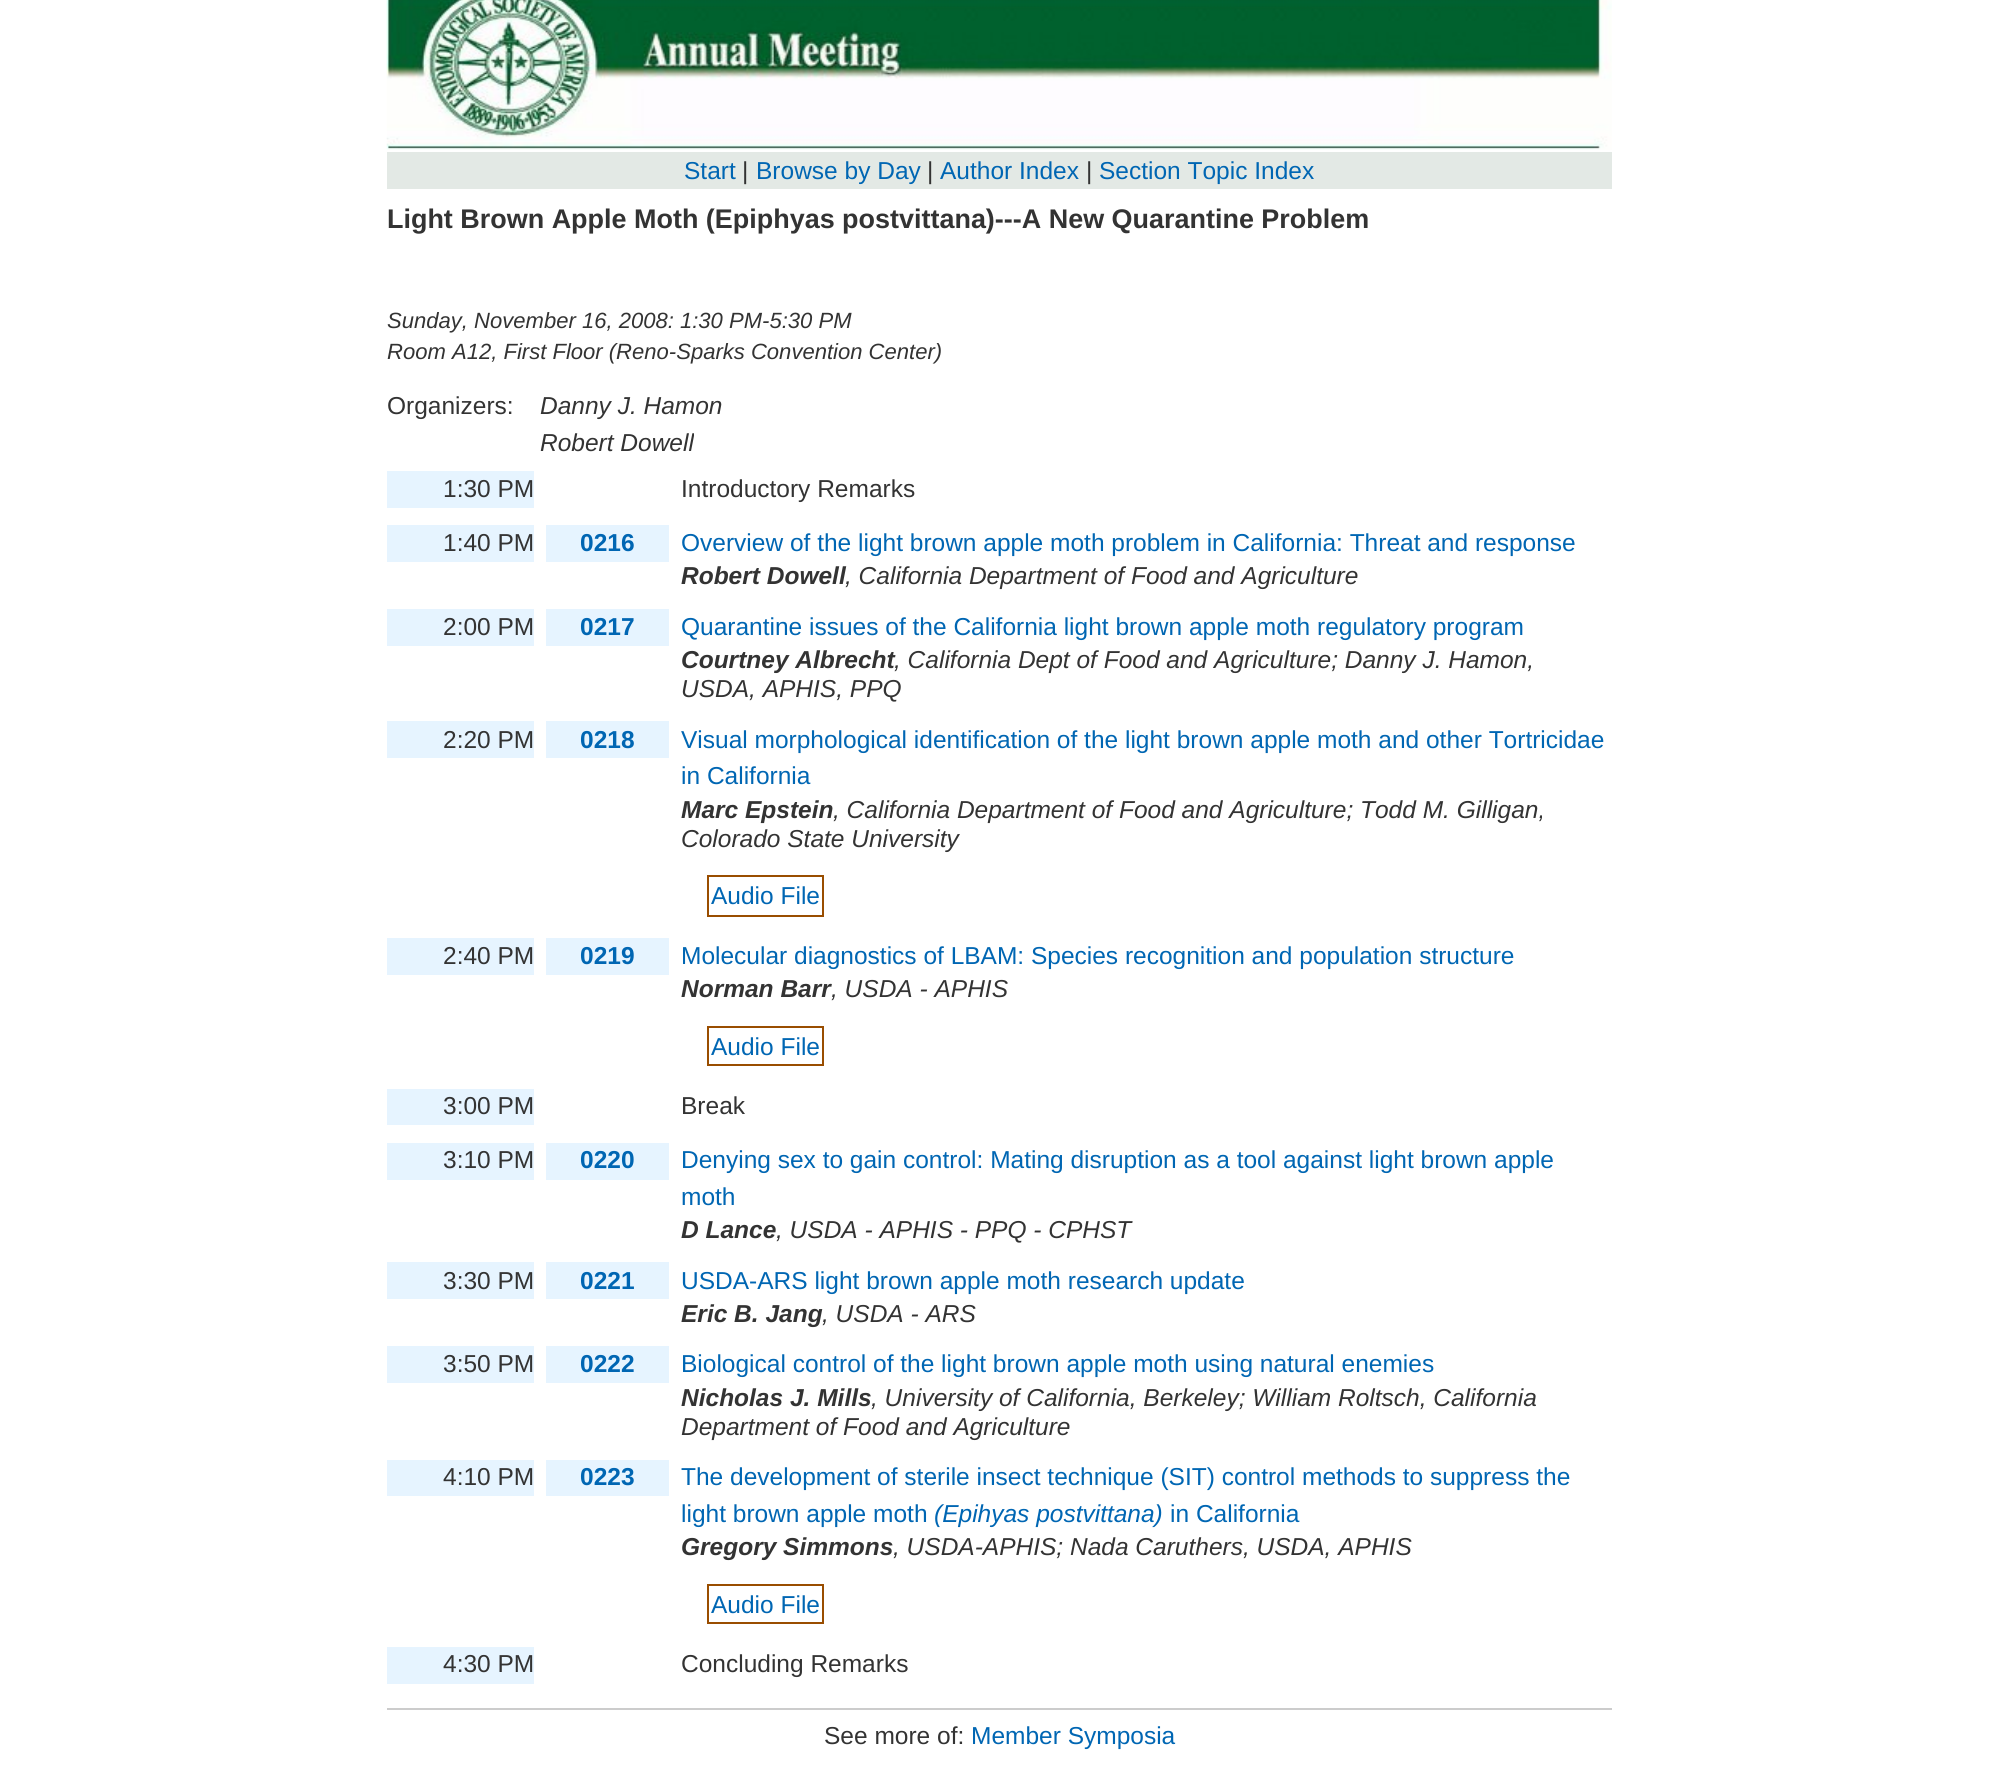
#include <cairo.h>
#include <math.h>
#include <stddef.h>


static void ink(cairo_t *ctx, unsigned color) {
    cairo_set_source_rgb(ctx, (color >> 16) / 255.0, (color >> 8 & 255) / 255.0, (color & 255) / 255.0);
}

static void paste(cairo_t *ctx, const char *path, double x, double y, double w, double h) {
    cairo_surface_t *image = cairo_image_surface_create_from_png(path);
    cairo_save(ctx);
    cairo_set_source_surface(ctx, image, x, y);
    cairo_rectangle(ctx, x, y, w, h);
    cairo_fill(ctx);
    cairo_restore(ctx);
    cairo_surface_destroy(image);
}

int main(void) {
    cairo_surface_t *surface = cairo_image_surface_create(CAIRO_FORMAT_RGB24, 1997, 1773);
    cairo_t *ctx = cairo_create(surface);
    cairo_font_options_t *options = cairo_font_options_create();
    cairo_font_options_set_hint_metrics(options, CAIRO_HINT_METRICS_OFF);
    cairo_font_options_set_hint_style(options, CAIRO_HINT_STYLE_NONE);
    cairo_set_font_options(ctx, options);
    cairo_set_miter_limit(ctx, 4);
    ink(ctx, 0xFFFFFF);
    cairo_paint(ctx);
    paste(ctx, "media/1.png", 386, 0, 1226, 150);
    ink(ctx, 0xE3E9E5);
    cairo_rectangle(ctx, 387, 152, 1225, 37);
    cairo_fill(ctx);
    cairo_select_font_face(ctx, "Liberation Sans", CAIRO_FONT_SLANT_NORMAL, CAIRO_FONT_WEIGHT_NORMAL);
    cairo_set_font_size(ctx, 24.5);
    ink(ctx, 0x0066B3);
    cairo_move_to(ctx, 684, 179);
    cairo_show_text(ctx, "Start");
    ink(ctx, 0x333333);
    cairo_move_to(ctx, 742, 179);
    cairo_show_text(ctx, "|");
    ink(ctx, 0x0066B3);
    cairo_move_to(ctx, 756, 179);
    cairo_show_text(ctx, "Browse by Day");
    ink(ctx, 0x333333);
    cairo_move_to(ctx, 927, 179);
    cairo_show_text(ctx, "|");
    ink(ctx, 0x0066B3);
    cairo_move_to(ctx, 940, 179);
    cairo_show_text(ctx, "Author Index");
    ink(ctx, 0x333333);
    cairo_move_to(ctx, 1086, 179);
    cairo_show_text(ctx, "|");
    ink(ctx, 0x0066B3);
    cairo_move_to(ctx, 1099, 179);
    cairo_show_text(ctx, "Section Topic Index");
    cairo_select_font_face(ctx, "Liberation Sans", CAIRO_FONT_SLANT_NORMAL, CAIRO_FONT_WEIGHT_BOLD);
    cairo_set_font_size(ctx, 26.95);
    ink(ctx, 0x333333);
    cairo_move_to(ctx, 387, 228);
    cairo_show_text(ctx, "Light Brown Apple Moth (Epiphyas postvittana)---A New Quarantine Problem");
    cairo_select_font_face(ctx, "Liberation Sans", CAIRO_FONT_SLANT_ITALIC, CAIRO_FONT_WEIGHT_NORMAL);
    cairo_set_font_size(ctx, 22.05);
    cairo_move_to(ctx, 387, 328);
    cairo_show_text(ctx, "Sunday, November 16, 2008: 1:30 PM-5:30 PM");
    cairo_move_to(ctx, 387, 359);
    cairo_show_text(ctx, "Room A12, First Floor (Reno-Sparks Convention Center)");
    cairo_select_font_face(ctx, "Liberation Sans", CAIRO_FONT_SLANT_NORMAL, CAIRO_FONT_WEIGHT_NORMAL);
    cairo_set_font_size(ctx, 24.5);
    cairo_move_to(ctx, 387, 414);
    cairo_show_text(ctx, "Organizers:");
    cairo_select_font_face(ctx, "Liberation Sans", CAIRO_FONT_SLANT_ITALIC, CAIRO_FONT_WEIGHT_NORMAL);
    cairo_move_to(ctx, 540, 414);
    cairo_show_text(ctx, "Danny J. Hamon");
    cairo_move_to(ctx, 540, 451);
    cairo_show_text(ctx, "Robert Dowell");
    ink(ctx, 0xE6F4FF);
    cairo_rectangle(ctx, 387, 471, 147, 37);
    cairo_fill(ctx);
    cairo_select_font_face(ctx, "Liberation Sans", CAIRO_FONT_SLANT_NORMAL, CAIRO_FONT_WEIGHT_NORMAL);
    ink(ctx, 0x333333);
    cairo_move_to(ctx, 443, 497);
    cairo_show_text(ctx, "1:30 PM");
    cairo_move_to(ctx, 681, 497);
    cairo_show_text(ctx, "Introductory Remarks");
    ink(ctx, 0xE6F4FF);
    cairo_rectangle(ctx, 387, 525, 147, 37);
    cairo_fill(ctx);
    ink(ctx, 0x333333);
    cairo_move_to(ctx, 443, 551);
    cairo_show_text(ctx, "1:40 PM");
    ink(ctx, 0xE6F4FF);
    cairo_rectangle(ctx, 546, 525, 123, 37);
    cairo_fill(ctx);
    cairo_select_font_face(ctx, "Liberation Sans", CAIRO_FONT_SLANT_NORMAL, CAIRO_FONT_WEIGHT_BOLD);
    ink(ctx, 0x0066B3);
    cairo_move_to(ctx, 580, 551);
    cairo_show_text(ctx, "0216");
    cairo_select_font_face(ctx, "Liberation Sans", CAIRO_FONT_SLANT_NORMAL, CAIRO_FONT_WEIGHT_NORMAL);
    cairo_move_to(ctx, 681, 551);
    cairo_show_text(ctx, "Overview of the light brown apple moth problem in California: Threat and response");
    cairo_select_font_face(ctx, "Liberation Sans", CAIRO_FONT_SLANT_ITALIC, CAIRO_FONT_WEIGHT_BOLD);
    ink(ctx, 0x333333);
    cairo_move_to(ctx, 681, 584);
    cairo_show_text(ctx, "Robert Dowell");
    cairo_select_font_face(ctx, "Liberation Sans", CAIRO_FONT_SLANT_ITALIC, CAIRO_FONT_WEIGHT_NORMAL);
    cairo_move_to(ctx, 845, 584);
    cairo_show_text(ctx, ", California Department of Food and Agriculture");
    ink(ctx, 0xE6F4FF);
    cairo_rectangle(ctx, 387, 609, 147, 37);
    cairo_fill(ctx);
    cairo_select_font_face(ctx, "Liberation Sans", CAIRO_FONT_SLANT_NORMAL, CAIRO_FONT_WEIGHT_NORMAL);
    ink(ctx, 0x333333);
    cairo_move_to(ctx, 443, 635);
    cairo_show_text(ctx, "2:00 PM");
    ink(ctx, 0xE6F4FF);
    cairo_rectangle(ctx, 546, 609, 123, 37);
    cairo_fill(ctx);
    cairo_select_font_face(ctx, "Liberation Sans", CAIRO_FONT_SLANT_NORMAL, CAIRO_FONT_WEIGHT_BOLD);
    ink(ctx, 0x0066B3);
    cairo_move_to(ctx, 580, 635);
    cairo_show_text(ctx, "0217");
    cairo_select_font_face(ctx, "Liberation Sans", CAIRO_FONT_SLANT_NORMAL, CAIRO_FONT_WEIGHT_NORMAL);
    cairo_move_to(ctx, 681, 635);
    cairo_show_text(ctx, "Quarantine issues of the California light brown apple moth regulatory program");
    cairo_select_font_face(ctx, "Liberation Sans", CAIRO_FONT_SLANT_ITALIC, CAIRO_FONT_WEIGHT_BOLD);
    ink(ctx, 0x333333);
    cairo_move_to(ctx, 681, 668);
    cairo_show_text(ctx, "Courtney Albrecht");
    cairo_select_font_face(ctx, "Liberation Sans", CAIRO_FONT_SLANT_ITALIC, CAIRO_FONT_WEIGHT_NORMAL);
    cairo_move_to(ctx, 894, 668);
    cairo_show_text(ctx, ", California Dept of Food and Agriculture; Danny J. Hamon,");
    cairo_move_to(ctx, 681, 697);
    cairo_show_text(ctx, "USDA, APHIS, PPQ");
    ink(ctx, 0xE6F4FF);
    cairo_rectangle(ctx, 387, 721, 147, 37);
    cairo_fill(ctx);
    cairo_select_font_face(ctx, "Liberation Sans", CAIRO_FONT_SLANT_NORMAL, CAIRO_FONT_WEIGHT_NORMAL);
    ink(ctx, 0x333333);
    cairo_move_to(ctx, 443, 748);
    cairo_show_text(ctx, "2:20 PM");
    ink(ctx, 0xE6F4FF);
    cairo_rectangle(ctx, 546, 721, 123, 37);
    cairo_fill(ctx);
    cairo_select_font_face(ctx, "Liberation Sans", CAIRO_FONT_SLANT_NORMAL, CAIRO_FONT_WEIGHT_BOLD);
    ink(ctx, 0x0066B3);
    cairo_move_to(ctx, 580, 748);
    cairo_show_text(ctx, "0218");
    cairo_select_font_face(ctx, "Liberation Sans", CAIRO_FONT_SLANT_NORMAL, CAIRO_FONT_WEIGHT_NORMAL);
    cairo_move_to(ctx, 681, 748);
    cairo_show_text(ctx, "Visual morphological identification of the light brown apple moth and other Tortricidae");
    cairo_move_to(ctx, 681, 784);
    cairo_show_text(ctx, "in California");
    cairo_select_font_face(ctx, "Liberation Sans", CAIRO_FONT_SLANT_ITALIC, CAIRO_FONT_WEIGHT_BOLD);
    ink(ctx, 0x333333);
    cairo_move_to(ctx, 681, 818);
    cairo_show_text(ctx, "Marc Epstein");
    cairo_select_font_face(ctx, "Liberation Sans", CAIRO_FONT_SLANT_ITALIC, CAIRO_FONT_WEIGHT_NORMAL);
    cairo_move_to(ctx, 833, 818);
    cairo_show_text(ctx, ", California Department of Food and Agriculture; Todd M. Gilligan,");
    cairo_move_to(ctx, 681, 847);
    cairo_show_text(ctx, "Colorado State University");
    cairo_rectangle(ctx, 708, 876, 115, 40);
    ink(ctx, 0x994D00);
    cairo_stroke(ctx);
    cairo_select_font_face(ctx, "Liberation Sans", CAIRO_FONT_SLANT_NORMAL, CAIRO_FONT_WEIGHT_NORMAL);
    ink(ctx, 0x0066B3);
    cairo_move_to(ctx, 711, 904);
    cairo_show_text(ctx, "Audio File");
    ink(ctx, 0xE6F4FF);
    cairo_rectangle(ctx, 387, 938, 147, 37);
    cairo_fill(ctx);
    ink(ctx, 0x333333);
    cairo_move_to(ctx, 443, 964);
    cairo_show_text(ctx, "2:40 PM");
    ink(ctx, 0xE6F4FF);
    cairo_rectangle(ctx, 546, 938, 123, 37);
    cairo_fill(ctx);
    cairo_select_font_face(ctx, "Liberation Sans", CAIRO_FONT_SLANT_NORMAL, CAIRO_FONT_WEIGHT_BOLD);
    ink(ctx, 0x0066B3);
    cairo_move_to(ctx, 580, 964);
    cairo_show_text(ctx, "0219");
    cairo_select_font_face(ctx, "Liberation Sans", CAIRO_FONT_SLANT_NORMAL, CAIRO_FONT_WEIGHT_NORMAL);
    cairo_move_to(ctx, 681, 964);
    cairo_show_text(ctx, "Molecular diagnostics of LBAM: Species recognition and population structure");
    cairo_select_font_face(ctx, "Liberation Sans", CAIRO_FONT_SLANT_ITALIC, CAIRO_FONT_WEIGHT_BOLD);
    ink(ctx, 0x333333);
    cairo_move_to(ctx, 681, 997);
    cairo_show_text(ctx, "Norman Barr");
    cairo_select_font_face(ctx, "Liberation Sans", CAIRO_FONT_SLANT_ITALIC, CAIRO_FONT_WEIGHT_NORMAL);
    cairo_move_to(ctx, 831, 997);
    cairo_show_text(ctx, ", USDA - APHIS");
    cairo_rectangle(ctx, 708, 1027, 115, 38);
    ink(ctx, 0x994D00);
    cairo_stroke(ctx);
    cairo_select_font_face(ctx, "Liberation Sans", CAIRO_FONT_SLANT_NORMAL, CAIRO_FONT_WEIGHT_NORMAL);
    ink(ctx, 0x0066B3);
    cairo_move_to(ctx, 711, 1055);
    cairo_show_text(ctx, "Audio File");
    ink(ctx, 0xE6F4FF);
    cairo_rectangle(ctx, 387, 1089, 147, 36);
    cairo_fill(ctx);
    ink(ctx, 0x333333);
    cairo_move_to(ctx, 443, 1114);
    cairo_show_text(ctx, "3:00 PM");
    cairo_move_to(ctx, 681, 1114);
    cairo_show_text(ctx, "Break");
    ink(ctx, 0xE6F4FF);
    cairo_rectangle(ctx, 387, 1143, 147, 37);
    cairo_fill(ctx);
    ink(ctx, 0x333333);
    cairo_move_to(ctx, 443, 1168);
    cairo_show_text(ctx, "3:10 PM");
    ink(ctx, 0xE6F4FF);
    cairo_rectangle(ctx, 546, 1143, 123, 37);
    cairo_fill(ctx);
    cairo_select_font_face(ctx, "Liberation Sans", CAIRO_FONT_SLANT_NORMAL, CAIRO_FONT_WEIGHT_BOLD);
    ink(ctx, 0x0066B3);
    cairo_move_to(ctx, 580, 1168);
    cairo_show_text(ctx, "0220");
    cairo_select_font_face(ctx, "Liberation Sans", CAIRO_FONT_SLANT_NORMAL, CAIRO_FONT_WEIGHT_NORMAL);
    cairo_move_to(ctx, 681, 1168);
    cairo_show_text(ctx, "Denying sex to gain control: Mating disruption as a tool against light brown apple");
    cairo_move_to(ctx, 681, 1205);
    cairo_show_text(ctx, "moth");
    cairo_select_font_face(ctx, "Liberation Sans", CAIRO_FONT_SLANT_ITALIC, CAIRO_FONT_WEIGHT_BOLD);
    ink(ctx, 0x333333);
    cairo_move_to(ctx, 681, 1238);
    cairo_show_text(ctx, "D Lance");
    cairo_select_font_face(ctx, "Liberation Sans", CAIRO_FONT_SLANT_ITALIC, CAIRO_FONT_WEIGHT_NORMAL);
    cairo_move_to(ctx, 776, 1238);
    cairo_show_text(ctx, ", USDA - APHIS - PPQ - CPHST");
    ink(ctx, 0xE6F4FF);
    cairo_rectangle(ctx, 387, 1262, 147, 37);
    cairo_fill(ctx);
    cairo_select_font_face(ctx, "Liberation Sans", CAIRO_FONT_SLANT_NORMAL, CAIRO_FONT_WEIGHT_NORMAL);
    ink(ctx, 0x333333);
    cairo_move_to(ctx, 443, 1289);
    cairo_show_text(ctx, "3:30 PM");
    ink(ctx, 0xE6F4FF);
    cairo_rectangle(ctx, 546, 1262, 123, 37);
    cairo_fill(ctx);
    cairo_select_font_face(ctx, "Liberation Sans", CAIRO_FONT_SLANT_NORMAL, CAIRO_FONT_WEIGHT_BOLD);
    ink(ctx, 0x0066B3);
    cairo_move_to(ctx, 580, 1289);
    cairo_show_text(ctx, "0221");
    cairo_select_font_face(ctx, "Liberation Sans", CAIRO_FONT_SLANT_NORMAL, CAIRO_FONT_WEIGHT_NORMAL);
    cairo_move_to(ctx, 681, 1289);
    cairo_show_text(ctx, "USDA-ARS light brown apple moth research update");
    cairo_select_font_face(ctx, "Liberation Sans", CAIRO_FONT_SLANT_ITALIC, CAIRO_FONT_WEIGHT_BOLD);
    ink(ctx, 0x333333);
    cairo_move_to(ctx, 681, 1322);
    cairo_show_text(ctx, "Eric B. Jang");
    cairo_select_font_face(ctx, "Liberation Sans", CAIRO_FONT_SLANT_ITALIC, CAIRO_FONT_WEIGHT_NORMAL);
    cairo_move_to(ctx, 822, 1322);
    cairo_show_text(ctx, ", USDA - ARS");
    ink(ctx, 0xE6F4FF);
    cairo_rectangle(ctx, 387, 1346, 147, 37);
    cairo_fill(ctx);
    cairo_select_font_face(ctx, "Liberation Sans", CAIRO_FONT_SLANT_NORMAL, CAIRO_FONT_WEIGHT_NORMAL);
    ink(ctx, 0x333333);
    cairo_move_to(ctx, 443, 1372);
    cairo_show_text(ctx, "3:50 PM");
    ink(ctx, 0xE6F4FF);
    cairo_rectangle(ctx, 546, 1346, 123, 37);
    cairo_fill(ctx);
    cairo_select_font_face(ctx, "Liberation Sans", CAIRO_FONT_SLANT_NORMAL, CAIRO_FONT_WEIGHT_BOLD);
    ink(ctx, 0x0066B3);
    cairo_move_to(ctx, 580, 1372);
    cairo_show_text(ctx, "0222");
    cairo_select_font_face(ctx, "Liberation Sans", CAIRO_FONT_SLANT_NORMAL, CAIRO_FONT_WEIGHT_NORMAL);
    cairo_move_to(ctx, 681, 1372);
    cairo_show_text(ctx, "Biological control of the light brown apple moth using natural enemies");
    cairo_select_font_face(ctx, "Liberation Sans", CAIRO_FONT_SLANT_ITALIC, CAIRO_FONT_WEIGHT_BOLD);
    ink(ctx, 0x333333);
    cairo_move_to(ctx, 681, 1406);
    cairo_show_text(ctx, "Nicholas J. Mills");
    cairo_select_font_face(ctx, "Liberation Sans", CAIRO_FONT_SLANT_ITALIC, CAIRO_FONT_WEIGHT_NORMAL);
    cairo_move_to(ctx, 871, 1406);
    cairo_show_text(ctx, ", University of California, Berkeley; William Roltsch, California");
    cairo_move_to(ctx, 681, 1435);
    cairo_show_text(ctx, "Department of Food and Agriculture");
    ink(ctx, 0xE6F4FF);
    cairo_rectangle(ctx, 387, 1460, 147, 36);
    cairo_fill(ctx);
    cairo_select_font_face(ctx, "Liberation Sans", CAIRO_FONT_SLANT_NORMAL, CAIRO_FONT_WEIGHT_NORMAL);
    ink(ctx, 0x333333);
    cairo_move_to(ctx, 443, 1485);
    cairo_show_text(ctx, "4:10 PM");
    ink(ctx, 0xE6F4FF);
    cairo_rectangle(ctx, 546, 1460, 123, 36);
    cairo_fill(ctx);
    cairo_select_font_face(ctx, "Liberation Sans", CAIRO_FONT_SLANT_NORMAL, CAIRO_FONT_WEIGHT_BOLD);
    ink(ctx, 0x0066B3);
    cairo_move_to(ctx, 580, 1485);
    cairo_show_text(ctx, "0223");
    cairo_select_font_face(ctx, "Liberation Sans", CAIRO_FONT_SLANT_NORMAL, CAIRO_FONT_WEIGHT_NORMAL);
    cairo_move_to(ctx, 681, 1485);
    cairo_show_text(ctx, "The development of sterile insect technique (SIT) control methods to suppress the");
    cairo_move_to(ctx, 681, 1522);
    cairo_show_text(ctx, "light brown apple moth");
    cairo_select_font_face(ctx, "Liberation Sans", CAIRO_FONT_SLANT_ITALIC, CAIRO_FONT_WEIGHT_NORMAL);
    cairo_move_to(ctx, 934, 1522);
    cairo_show_text(ctx, "(Epihyas postvittana)");
    cairo_select_font_face(ctx, "Liberation Sans", CAIRO_FONT_SLANT_NORMAL, CAIRO_FONT_WEIGHT_NORMAL);
    cairo_move_to(ctx, 1170, 1522);
    cairo_show_text(ctx, "in California");
    cairo_select_font_face(ctx, "Liberation Sans", CAIRO_FONT_SLANT_ITALIC, CAIRO_FONT_WEIGHT_BOLD);
    ink(ctx, 0x333333);
    cairo_move_to(ctx, 681, 1555);
    cairo_show_text(ctx, "Gregory Simmons");
    cairo_select_font_face(ctx, "Liberation Sans", CAIRO_FONT_SLANT_ITALIC, CAIRO_FONT_WEIGHT_NORMAL);
    cairo_move_to(ctx, 893, 1555);
    cairo_show_text(ctx, ", USDA-APHIS; Nada Caruthers, USDA, APHIS");
    cairo_rectangle(ctx, 708, 1585, 115, 38);
    ink(ctx, 0x994D00);
    cairo_stroke(ctx);
    cairo_select_font_face(ctx, "Liberation Sans", CAIRO_FONT_SLANT_NORMAL, CAIRO_FONT_WEIGHT_NORMAL);
    ink(ctx, 0x0066B3);
    cairo_move_to(ctx, 711, 1613);
    cairo_show_text(ctx, "Audio File");
    ink(ctx, 0xE6F4FF);
    cairo_rectangle(ctx, 387, 1647, 147, 37);
    cairo_fill(ctx);
    ink(ctx, 0x333333);
    cairo_move_to(ctx, 443, 1672);
    cairo_show_text(ctx, "4:30 PM");
    cairo_move_to(ctx, 681, 1672);
    cairo_show_text(ctx, "Concluding Remarks");
    ink(ctx, 0xCCCCCC);
    cairo_rectangle(ctx, 387, 1708, 1225, 2);
    cairo_fill(ctx);
    ink(ctx, 0x333333);
    cairo_move_to(ctx, 824, 1744);
    cairo_show_text(ctx, "See more of:");
    ink(ctx, 0x0066B3);
    cairo_move_to(ctx, 971, 1744);
    cairo_show_text(ctx, "Member Symposia");
    cairo_surface_write_to_png(surface, "image.png");
    cairo_font_options_destroy(options);
    cairo_destroy(ctx);
    cairo_surface_destroy(surface);
    return 0;
}
